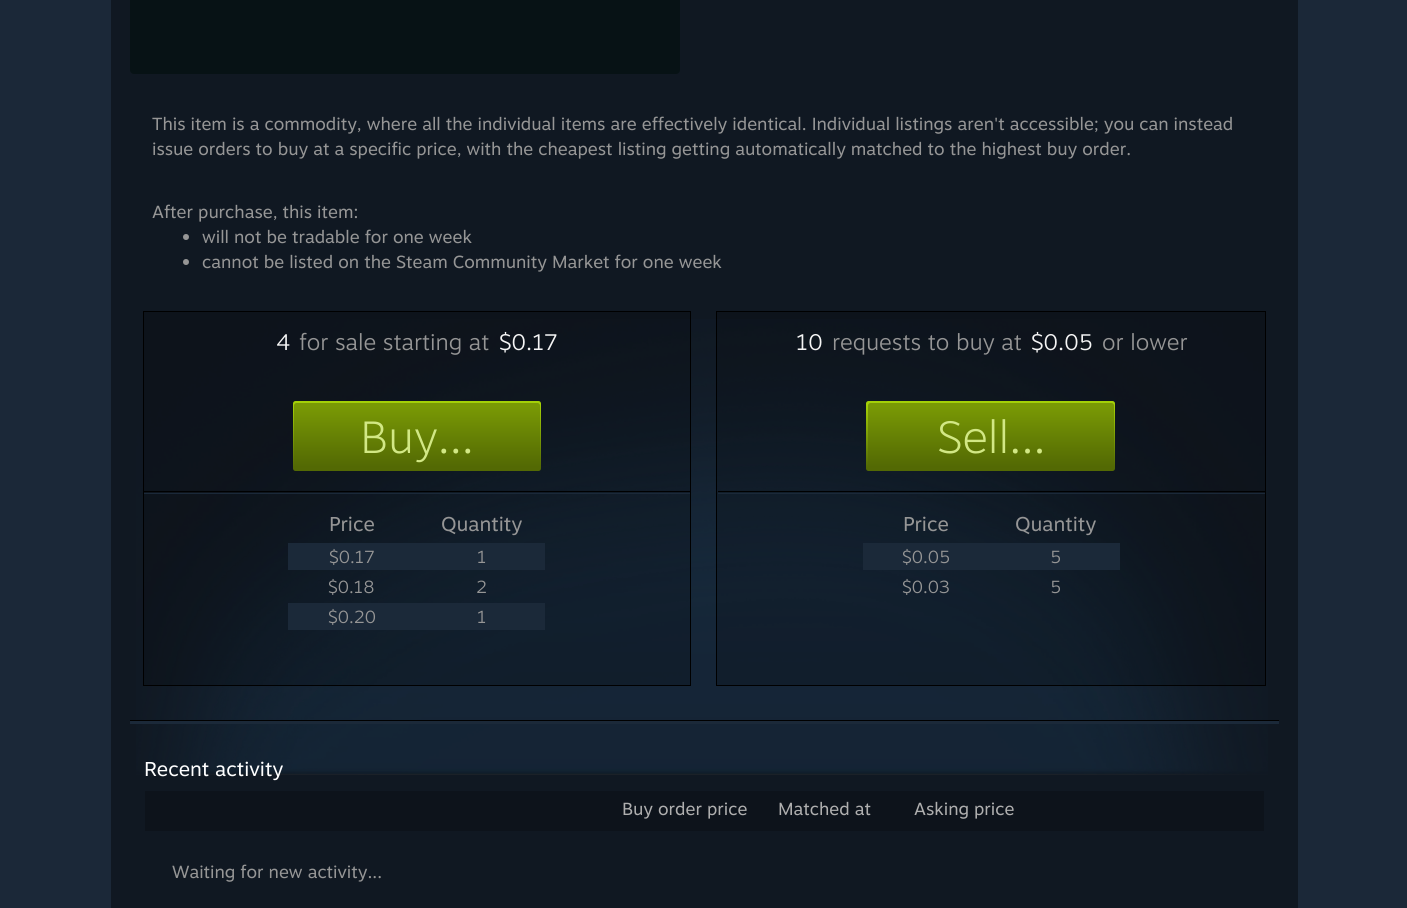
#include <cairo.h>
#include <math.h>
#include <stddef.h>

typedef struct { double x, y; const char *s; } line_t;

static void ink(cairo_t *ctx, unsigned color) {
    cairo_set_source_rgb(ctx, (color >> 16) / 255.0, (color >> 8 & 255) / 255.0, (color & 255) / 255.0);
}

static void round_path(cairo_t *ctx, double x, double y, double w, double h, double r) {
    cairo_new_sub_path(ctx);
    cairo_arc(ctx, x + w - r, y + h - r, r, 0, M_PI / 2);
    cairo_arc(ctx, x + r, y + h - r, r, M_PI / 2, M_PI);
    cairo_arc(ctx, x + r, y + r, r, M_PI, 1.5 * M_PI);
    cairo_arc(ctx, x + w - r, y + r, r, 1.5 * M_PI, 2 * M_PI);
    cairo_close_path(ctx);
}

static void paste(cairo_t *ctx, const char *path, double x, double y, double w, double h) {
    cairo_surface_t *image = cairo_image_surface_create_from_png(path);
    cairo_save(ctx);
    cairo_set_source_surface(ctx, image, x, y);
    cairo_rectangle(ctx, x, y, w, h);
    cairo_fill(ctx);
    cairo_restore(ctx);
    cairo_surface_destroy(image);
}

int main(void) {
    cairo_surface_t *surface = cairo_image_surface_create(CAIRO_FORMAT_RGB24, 1407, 908);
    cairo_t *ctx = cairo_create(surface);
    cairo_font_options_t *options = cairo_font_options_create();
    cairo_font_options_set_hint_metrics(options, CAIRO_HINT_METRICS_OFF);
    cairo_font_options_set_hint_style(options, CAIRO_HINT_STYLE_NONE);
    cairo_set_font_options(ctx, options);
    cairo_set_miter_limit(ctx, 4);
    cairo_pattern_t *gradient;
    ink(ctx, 0x1B2838);
    cairo_paint(ctx);
    ink(ctx, 0x101822);
    cairo_rectangle(ctx, 111, 0, 1187, 908);
    cairo_fill(ctx);
    ink(ctx, 0x071215);
    round_path(ctx, 130, -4, 550, 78, 4);
    cairo_fill(ctx);
    cairo_select_font_face(ctx, "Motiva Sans", CAIRO_FONT_SLANT_NORMAL, CAIRO_FONT_WEIGHT_NORMAL);
    cairo_set_font_size(ctx, 17.5);
    ink(ctx, 0x969696);
    {
        static const line_t items[] = {
            {152, 130, "This item is a commodity, where all the individual items are effectively identical. Individual listings aren't accessible; you can instead"},
            {152, 155, "issue orders to buy at a specific price, with the cheapest listing getting automatically matched to the highest buy order."},
            {152, 218, "After purchase, this item:"},
        };
        for (size_t i = 0; i < sizeof items / sizeof *items; i++) {
            cairo_move_to(ctx, items[i].x, items[i].y);
            cairo_show_text(ctx, items[i].s);
        }
    }
    cairo_new_path(ctx);
    cairo_arc(ctx, 186, 237, 3, 0, 2 * M_PI);
    cairo_fill(ctx);
    cairo_move_to(ctx, 202, 243);
    cairo_show_text(ctx, "will not be tradable for one week");
    cairo_new_path(ctx);
    cairo_arc(ctx, 186, 262, 3, 0, 2 * M_PI);
    cairo_fill(ctx);
    cairo_move_to(ctx, 202, 268);
    cairo_show_text(ctx, "cannot be listed on the Steam Community Market for one week");
    paste(ctx, "media/1.png", 136, 319, 1132, 456);
    cairo_set_source_rgba(ctx, 0, 0, 0, 0.2);
    cairo_rectangle(ctx, 143.5, 311.5, 547, 374);
    cairo_fill_preserve(ctx);
    ink(ctx, 0x000000);
    cairo_set_line_width(ctx, 1);
    cairo_stroke(ctx);
    cairo_rectangle(ctx, 144, 491, 546, 1);
    cairo_fill(ctx);
    cairo_select_font_face(ctx, "Motiva Sans Light", CAIRO_FONT_SLANT_NORMAL, CAIRO_FONT_WEIGHT_NORMAL);
    cairo_set_font_size(ctx, 22.5);
    ink(ctx, 0xF5F5F5);
    cairo_move_to(ctx, 276, 350);
    cairo_show_text(ctx, "4");
    ink(ctx, 0x969696);
    cairo_move_to(ctx, 299, 350);
    cairo_show_text(ctx, "for sale starting at");
    ink(ctx, 0xF5F5F5);
    cairo_move_to(ctx, 499, 350);
    cairo_show_text(ctx, "$0.17");
    gradient = cairo_pattern_create_linear(417, 401, 417, 471);
    cairo_pattern_add_color_stop_rgba(gradient, 0.05, 0.643, 0.816, 0.027, 1);
    cairo_pattern_add_color_stop_rgba(gradient, 0.95, 0.325, 0.412, 0.016, 1);
    cairo_set_source(ctx, gradient);
    cairo_pattern_destroy(gradient);
    round_path(ctx, 293, 401, 248, 70, 2.5);
    cairo_fill(ctx);
    gradient = cairo_pattern_create_linear(417, 403, 417, 470);
    cairo_pattern_add_color_stop_rgba(gradient, 0.05, 0.475, 0.6, 0.02, 1);
    cairo_pattern_add_color_stop_rgba(gradient, 0.95, 0.325, 0.412, 0.016, 1);
    cairo_set_source(ctx, gradient);
    cairo_pattern_destroy(gradient);
    round_path(ctx, 294, 403, 246, 67, 2.5);
    cairo_fill(ctx);
    cairo_select_font_face(ctx, "Motiva Sans Thin", CAIRO_FONT_SLANT_NORMAL, CAIRO_FONT_WEIGHT_NORMAL);
    cairo_set_font_size(ctx, 45);
    ink(ctx, 0xD2E885);
    cairo_move_to(ctx, 360, 453);
    cairo_show_text(ctx, "Buy...");
    ink(ctx, 0x1B2939);
    cairo_rectangle(ctx, 144, 493, 546, 1);
    cairo_fill(ctx);
    cairo_select_font_face(ctx, "Motiva Sans", CAIRO_FONT_SLANT_NORMAL, CAIRO_FONT_WEIGHT_NORMAL);
    cairo_set_font_size(ctx, 20);
    ink(ctx, 0x969696);
    cairo_move_to(ctx, 329, 531);
    cairo_show_text(ctx, "Price");
    cairo_move_to(ctx, 441, 531);
    cairo_show_text(ctx, "Quantity");
    ink(ctx, 0x1B2939);
    cairo_rectangle(ctx, 288, 543, 257, 27);
    cairo_fill(ctx);
    cairo_select_font_face(ctx, "Motiva Sans Light", CAIRO_FONT_SLANT_NORMAL, CAIRO_FONT_WEIGHT_NORMAL);
    cairo_set_font_size(ctx, 17.5);
    ink(ctx, 0x969696);
    {
        static const line_t items[] = {
            {329, 563, "$0.17"},
            {477, 563, "1"},
            {328, 593, "$0.18"},
            {476, 593, "2"},
        };
        for (size_t i = 0; i < sizeof items / sizeof *items; i++) {
            cairo_move_to(ctx, items[i].x, items[i].y);
            cairo_show_text(ctx, items[i].s);
        }
    }
    ink(ctx, 0x1B2939);
    cairo_rectangle(ctx, 288, 603, 257, 27);
    cairo_fill(ctx);
    ink(ctx, 0x969696);
    cairo_move_to(ctx, 328, 623);
    cairo_show_text(ctx, "$0.20");
    cairo_move_to(ctx, 477, 623);
    cairo_show_text(ctx, "1");
    cairo_set_source_rgba(ctx, 0, 0, 0, 0.2);
    cairo_rectangle(ctx, 716.5, 311.5, 549, 374);
    cairo_fill_preserve(ctx);
    ink(ctx, 0x000000);
    cairo_stroke(ctx);
    cairo_rectangle(ctx, 718, 491, 547, 1);
    cairo_fill(ctx);
    cairo_set_font_size(ctx, 22.5);
    ink(ctx, 0xF5F5F5);
    cairo_move_to(ctx, 796, 350);
    cairo_show_text(ctx, "10");
    ink(ctx, 0x969696);
    cairo_move_to(ctx, 832, 350);
    cairo_show_text(ctx, "requests to buy at");
    ink(ctx, 0xF5F5F5);
    cairo_move_to(ctx, 1031, 350);
    cairo_show_text(ctx, "$0.05");
    ink(ctx, 0x969696);
    cairo_move_to(ctx, 1102, 350);
    cairo_show_text(ctx, "or lower");
    gradient = cairo_pattern_create_linear(991, 401, 991, 471);
    cairo_pattern_add_color_stop_rgba(gradient, 0.05, 0.643, 0.816, 0.027, 1);
    cairo_pattern_add_color_stop_rgba(gradient, 0.95, 0.325, 0.412, 0.016, 1);
    cairo_set_source(ctx, gradient);
    cairo_pattern_destroy(gradient);
    round_path(ctx, 866, 401, 249, 70, 2.5);
    cairo_fill(ctx);
    gradient = cairo_pattern_create_linear(991, 403, 991, 470);
    cairo_pattern_add_color_stop_rgba(gradient, 0.05, 0.475, 0.6, 0.02, 1);
    cairo_pattern_add_color_stop_rgba(gradient, 0.95, 0.325, 0.412, 0.016, 1);
    cairo_set_source(ctx, gradient);
    cairo_pattern_destroy(gradient);
    round_path(ctx, 868, 403, 246, 67, 2.5);
    cairo_fill(ctx);
    cairo_select_font_face(ctx, "Motiva Sans Thin", CAIRO_FONT_SLANT_NORMAL, CAIRO_FONT_WEIGHT_NORMAL);
    cairo_set_font_size(ctx, 45);
    ink(ctx, 0xD2E885);
    cairo_move_to(ctx, 937, 453);
    cairo_show_text(ctx, "Sell...");
    ink(ctx, 0x1B2939);
    cairo_rectangle(ctx, 718, 493, 547, 1);
    cairo_fill(ctx);
    cairo_select_font_face(ctx, "Motiva Sans", CAIRO_FONT_SLANT_NORMAL, CAIRO_FONT_WEIGHT_NORMAL);
    cairo_set_font_size(ctx, 20);
    ink(ctx, 0x969696);
    cairo_move_to(ctx, 903, 531);
    cairo_show_text(ctx, "Price");
    cairo_move_to(ctx, 1015, 531);
    cairo_show_text(ctx, "Quantity");
    ink(ctx, 0x1B2939);
    cairo_rectangle(ctx, 863, 543, 257, 27);
    cairo_fill(ctx);
    cairo_select_font_face(ctx, "Motiva Sans Light", CAIRO_FONT_SLANT_NORMAL, CAIRO_FONT_WEIGHT_NORMAL);
    cairo_set_font_size(ctx, 17.5);
    ink(ctx, 0x969696);
    {
        static const line_t items[] = {
            {902, 563, "$0.05"},
            {1050, 563, "5"},
            {902, 593, "$0.03"},
            {1050, 593, "5"},
        };
        for (size_t i = 0; i < sizeof items / sizeof *items; i++) {
            cairo_move_to(ctx, items[i].x, items[i].y);
            cairo_show_text(ctx, items[i].s);
        }
    }
    ink(ctx, 0x1B2939);
    cairo_rectangle(ctx, 130, 721, 1149, 3);
    cairo_fill(ctx);
    ink(ctx, 0x000000);
    cairo_rectangle(ctx, 130, 720, 1149, 1);
    cairo_fill(ctx);
    cairo_select_font_face(ctx, "Motiva Sans", CAIRO_FONT_SLANT_NORMAL, CAIRO_FONT_WEIGHT_NORMAL);
    cairo_set_font_size(ctx, 20);
    ink(ctx, 0xFFFFFF);
    cairo_move_to(ctx, 144, 776);
    cairo_show_text(ctx, "Recent activity");
    ink(ctx, 0x0D131B);
    cairo_rectangle(ctx, 145, 791, 1119, 40);
    cairo_fill(ctx);
    cairo_set_font_size(ctx, 17.5);
    ink(ctx, 0xAFAFAF);
    {
        static const line_t items[] = {
            {622, 815, "Buy order price"},
            {778, 815, "Matched at"},
            {914, 815, "Asking price"},
        };
        for (size_t i = 0; i < sizeof items / sizeof *items; i++) {
            cairo_move_to(ctx, items[i].x, items[i].y);
            cairo_show_text(ctx, items[i].s);
        }
    }
    ink(ctx, 0x969696);
    cairo_move_to(ctx, 172, 878);
    cairo_show_text(ctx, "Waiting for new activity...");
    cairo_surface_write_to_png(surface, "image.png");
    cairo_font_options_destroy(options);
    cairo_destroy(ctx);
    cairo_surface_destroy(surface);
    return 0;
}
